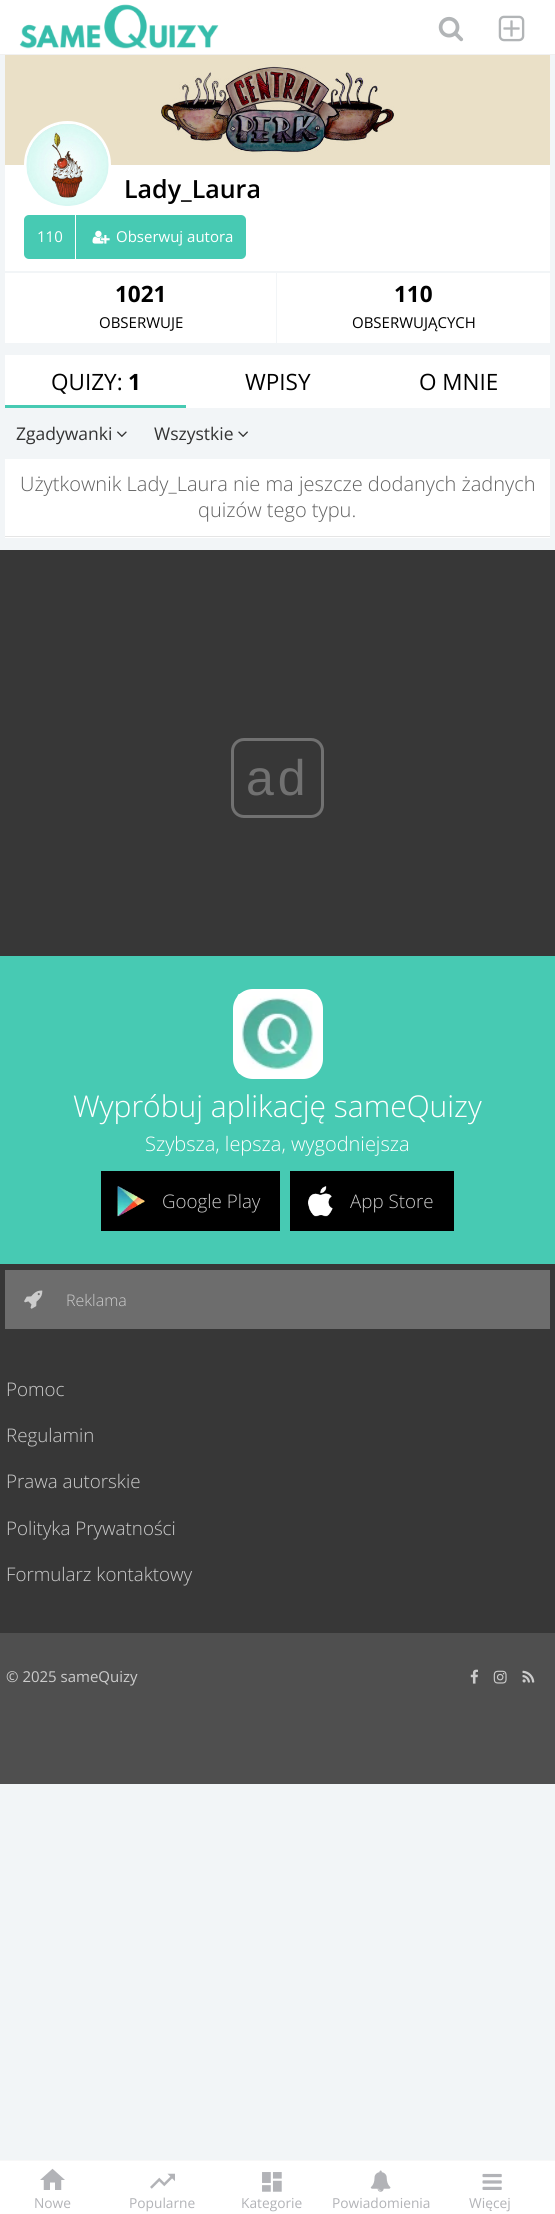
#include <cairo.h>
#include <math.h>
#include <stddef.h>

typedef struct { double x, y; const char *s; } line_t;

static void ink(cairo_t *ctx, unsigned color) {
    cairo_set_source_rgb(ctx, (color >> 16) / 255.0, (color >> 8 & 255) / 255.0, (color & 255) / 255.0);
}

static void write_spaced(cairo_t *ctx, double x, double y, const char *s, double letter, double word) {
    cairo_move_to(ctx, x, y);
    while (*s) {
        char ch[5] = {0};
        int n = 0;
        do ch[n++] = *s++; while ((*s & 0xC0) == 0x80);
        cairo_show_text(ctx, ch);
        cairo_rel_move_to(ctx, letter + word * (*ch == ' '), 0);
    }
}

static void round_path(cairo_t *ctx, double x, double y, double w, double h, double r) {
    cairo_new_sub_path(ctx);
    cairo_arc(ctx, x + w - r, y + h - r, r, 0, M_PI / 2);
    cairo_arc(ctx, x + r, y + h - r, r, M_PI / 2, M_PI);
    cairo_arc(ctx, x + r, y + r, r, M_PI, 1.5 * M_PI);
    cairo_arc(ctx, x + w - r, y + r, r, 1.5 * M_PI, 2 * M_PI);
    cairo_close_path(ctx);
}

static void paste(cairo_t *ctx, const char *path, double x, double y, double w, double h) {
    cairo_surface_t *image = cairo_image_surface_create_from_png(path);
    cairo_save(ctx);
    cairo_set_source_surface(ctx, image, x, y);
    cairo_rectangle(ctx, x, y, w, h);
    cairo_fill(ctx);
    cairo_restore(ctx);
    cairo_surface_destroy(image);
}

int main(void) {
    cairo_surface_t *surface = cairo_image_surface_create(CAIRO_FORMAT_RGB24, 555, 2214);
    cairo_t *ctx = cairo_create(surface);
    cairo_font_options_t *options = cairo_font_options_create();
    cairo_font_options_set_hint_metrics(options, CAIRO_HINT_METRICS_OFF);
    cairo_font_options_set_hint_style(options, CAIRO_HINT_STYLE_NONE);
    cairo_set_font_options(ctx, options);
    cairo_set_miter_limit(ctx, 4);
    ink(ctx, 0xF2F5F7);
    cairo_paint(ctx);
    ink(ctx, 0xFFFFFF);
    cairo_rectangle(ctx, 0, 0, 555, 54);
    cairo_fill(ctx);
    ink(ctx, 0xF1F1F1);
    cairo_rectangle(ctx, 0, 54, 555, 1);
    cairo_fill(ctx);
    paste(ctx, "media/1.png", 19, 4, 200, 45);
    paste(ctx, "media/2.png", 438, 16, 26, 26);
    paste(ctx, "media/3.png", 498, 15, 27, 27);
    paste(ctx, "media/4.png", 5, 55, 545, 110);
    ink(ctx, 0xFFFFFF);
    cairo_rectangle(ctx, 5, 165, 545, 106);
    cairo_fill(ctx);
    round_path(ctx, 25.5, 122.5, 84, 85, 42);
    cairo_set_line_width(ctx, 3);
    cairo_stroke(ctx);
    paste(ctx, "media/5.png", 26, 124, 83, 82);
    cairo_select_font_face(ctx, "Open Sans SemiBold", CAIRO_FONT_SLANT_NORMAL, CAIRO_FONT_WEIGHT_NORMAL);
    cairo_set_font_size(ctx, 25);
    ink(ctx, 0x000000);
    cairo_move_to(ctx, 124, 198);
    cairo_show_text(ctx, "Lady_Laura");
    ink(ctx, 0x47CAB3);
    round_path(ctx, 24, 215, 222, 44, 5);
    cairo_fill(ctx);
    ink(ctx, 0xFFFFFF);
    cairo_rectangle(ctx, 75, 215, 1, 44);
    cairo_fill(ctx);
    cairo_select_font_face(ctx, "Open Sans", CAIRO_FONT_SLANT_NORMAL, CAIRO_FONT_WEIGHT_NORMAL);
    cairo_set_font_size(ctx, 15);
    cairo_move_to(ctx, 37, 242);
    cairo_show_text(ctx, "110");
    paste(ctx, "media/6.png", 92, 230, 18, 14);
    cairo_move_to(ctx, 116, 242);
    cairo_show_text(ctx, "Obserwuj autora");
    cairo_rectangle(ctx, 5, 273, 545, 70);
    cairo_fill(ctx);
    ink(ctx, 0xF2F5F7);
    cairo_rectangle(ctx, 276, 273, 1, 70);
    cairo_fill(ctx);
    cairo_select_font_face(ctx, "Open Sans", CAIRO_FONT_SLANT_NORMAL, CAIRO_FONT_WEIGHT_BOLD);
    cairo_set_font_size(ctx, 22.5);
    ink(ctx, 0x000000);
    cairo_move_to(ctx, 115, 302);
    cairo_show_text(ctx, "1021");
    cairo_select_font_face(ctx, "Open Sans", CAIRO_FONT_SLANT_NORMAL, CAIRO_FONT_WEIGHT_NORMAL);
    cairo_set_font_size(ctx, 15);
    cairo_move_to(ctx, 99, 328);
    cairo_show_text(ctx, "OBSERWUJE");
    cairo_select_font_face(ctx, "Open Sans", CAIRO_FONT_SLANT_NORMAL, CAIRO_FONT_WEIGHT_BOLD);
    cairo_set_font_size(ctx, 22.5);
    cairo_move_to(ctx, 394, 302);
    cairo_show_text(ctx, "110");
    cairo_select_font_face(ctx, "Open Sans", CAIRO_FONT_SLANT_NORMAL, CAIRO_FONT_WEIGHT_NORMAL);
    cairo_set_font_size(ctx, 15);
    cairo_move_to(ctx, 352, 328);
    cairo_show_text(ctx, "OBSERWUJĄCYCH");
    ink(ctx, 0xFFFFFF);
    cairo_rectangle(ctx, 5, 355, 181, 50);
    cairo_fill(ctx);
    ink(ctx, 0x47CAB3);
    cairo_rectangle(ctx, 5, 405, 181, 3);
    cairo_fill(ctx);
    cairo_set_font_size(ctx, 22.5);
    ink(ctx, 0x000000);
    cairo_move_to(ctx, 51, 390);
    cairo_show_text(ctx, "QUIZY:");
    cairo_select_font_face(ctx, "Open Sans", CAIRO_FONT_SLANT_NORMAL, CAIRO_FONT_WEIGHT_BOLD);
    cairo_move_to(ctx, 128, 390);
    cairo_show_text(ctx, "1");
    ink(ctx, 0xFFFFFF);
    cairo_rectangle(ctx, 186, 355, 364, 53);
    cairo_fill(ctx);
    cairo_select_font_face(ctx, "Open Sans", CAIRO_FONT_SLANT_NORMAL, CAIRO_FONT_WEIGHT_NORMAL);
    ink(ctx, 0x000000);
    cairo_move_to(ctx, 245, 390);
    cairo_show_text(ctx, "WPISY");
    cairo_move_to(ctx, 419, 390);
    cairo_show_text(ctx, "O MNIE");
    cairo_set_font_size(ctx, 17.5);
    ink(ctx, 0x333333);
    cairo_move_to(ctx, 16, 440);
    cairo_show_text(ctx, "Zgadywanki");
    paste(ctx, "media/7.png", 117, 431, 10, 6);
    cairo_move_to(ctx, 154, 440);
    cairo_show_text(ctx, "Wszystkie");
    paste(ctx, "media/8.png", 238, 431, 10, 6);
    ink(ctx, 0xFFFFFF);
    cairo_rectangle(ctx, 5, 459, 545, 79);
    cairo_fill(ctx);
    ink(ctx, 0xE5E5E5);
    cairo_rectangle(ctx, 5, 536, 545, 1);
    cairo_fill(ctx);
    cairo_select_font_face(ctx, "Open Sans Light", CAIRO_FONT_SLANT_NORMAL, CAIRO_FONT_WEIGHT_NORMAL);
    cairo_set_font_size(ctx, 20);
    ink(ctx, 0x616161);
    cairo_move_to(ctx, 20, 491);
    cairo_show_text(ctx, "Użytkownik Lady_Laura nie ma jeszcze dodanych żadnych");
    cairo_move_to(ctx, 198, 517);
    cairo_show_text(ctx, "quizów tego typu.");
    ink(ctx, 0x4F4F4F);
    cairo_rectangle(ctx, 0, 1633, 555, 151);
    cairo_fill(ctx);
    ink(ctx, 0x373737);
    cairo_rectangle(ctx, 0, 550, 555, 1083);
    cairo_fill(ctx);
    round_path(ctx, 232.5, 739.5, 90, 77, 11.5);
    ink(ctx, 0x717171);
    cairo_stroke(ctx);
    cairo_select_font_face(ctx, "Liberation Sans", CAIRO_FONT_SLANT_NORMAL, CAIRO_FONT_WEIGHT_NORMAL);
    cairo_set_font_size(ctx, 50);
    write_spaced(ctx, 246, 795, "ad", 4, 0);
    ink(ctx, 0x47CAB3);
    cairo_rectangle(ctx, 0, 956, 555, 308);
    cairo_fill(ctx);
    ink(ctx, 0xFFFFFF);
    round_path(ctx, 233, 989, 90, 90, 20);
    cairo_fill(ctx);
    paste(ctx, "media/9.png", 237, 993, 81, 81);
    cairo_select_font_face(ctx, "Open Sans Light", CAIRO_FONT_SLANT_NORMAL, CAIRO_FONT_WEIGHT_NORMAL);
    cairo_set_font_size(ctx, 30);
    cairo_move_to(ctx, 73, 1117);
    cairo_show_text(ctx, "Wypróbuj aplikację sameQuizy");
    cairo_set_font_size(ctx, 20);
    cairo_move_to(ctx, 145, 1151);
    cairo_show_text(ctx, "Szybsza, lepsza, wygodniejsza");
    ink(ctx, 0x000000);
    cairo_rectangle(ctx, 101, 1171, 179, 60);
    cairo_fill(ctx);
    paste(ctx, "media/10.png", 117, 1186, 28, 31);
    cairo_set_font_size(ctx, 18.75);
    ink(ctx, 0xCCCCCC);
    cairo_move_to(ctx, 162, 1208);
    cairo_show_text(ctx, "Google Play");
    ink(ctx, 0x000000);
    cairo_rectangle(ctx, 290, 1171, 164, 60);
    cairo_fill(ctx);
    paste(ctx, "media/11.png", 308, 1186, 25, 31);
    ink(ctx, 0xCCCCCC);
    cairo_move_to(ctx, 350, 1208);
    cairo_show_text(ctx, "App Store");
    ink(ctx, 0x6D6D6D);
    cairo_rectangle(ctx, 5, 1270, 545, 59);
    cairo_fill(ctx);
    paste(ctx, "media/12.png", 24, 1290, 19, 19);
    cairo_set_font_size(ctx, 16);
    ink(ctx, 0xCCCCCC);
    cairo_move_to(ctx, 66, 1306);
    cairo_show_text(ctx, "Reklama");
    cairo_set_font_size(ctx, 18.75);
    {
        static const line_t items[] = {
            {6, 1396, "Pomoc"},
            {6, 1442, "Regulamin"},
            {6, 1488, "Prawa autorskie"},
            {6, 1535, "Polityka Prywatności"},
            {6, 1581, "Formularz kontaktowy"},
        };
        for (size_t i = 0; i < sizeof items / sizeof *items; i++) {
            cairo_move_to(ctx, items[i].x, items[i].y);
            cairo_show_text(ctx, items[i].s);
        }
    }
    cairo_select_font_face(ctx, "Open Sans", CAIRO_FONT_SLANT_NORMAL, CAIRO_FONT_WEIGHT_NORMAL);
    cairo_set_font_size(ctx, 15);
    cairo_move_to(ctx, 6, 1682);
    cairo_show_text(ctx, "© 2025 sameQuizy");
    paste(ctx, "media/13.png", 470, 1669, 8, 15);
    paste(ctx, "media/14.png", 493, 1670, 14, 14);
    paste(ctx, "media/15.png", 522, 1670, 13, 13);
    ink(ctx, 0xFFFFFF);
    cairo_rectangle(ctx, 0, 2161, 555, 53);
    cairo_fill(ctx);
    ink(ctx, 0xF8F8F8);
    cairo_rectangle(ctx, 0, 2160, 555, 1);
    cairo_fill(ctx);
    paste(ctx, "media/16.png", 40, 2168, 25, 22);
    cairo_set_font_size(ctx, 13.75);
    ink(ctx, 0xB2B3B7);
    cairo_move_to(ctx, 34, 2208);
    cairo_show_text(ctx, "Nowe");
    paste(ctx, "media/17.png", 150, 2173, 25, 16);
    cairo_move_to(ctx, 129, 2208);
    cairo_show_text(ctx, "Popularne");
    paste(ctx, "media/18.png", 262, 2172, 20, 20);
    cairo_move_to(ctx, 241, 2208);
    cairo_show_text(ctx, "Kategorie");
    paste(ctx, "media/19.png", 370, 2170, 21, 22);
    cairo_move_to(ctx, 332, 2208);
    cairo_show_text(ctx, "Powiadomienia");
    paste(ctx, "media/20.png", 482, 2173, 20, 17);
    cairo_move_to(ctx, 469, 2208);
    cairo_show_text(ctx, "Więcej");
    cairo_surface_write_to_png(surface, "image.png");
    cairo_font_options_destroy(options);
    cairo_destroy(ctx);
    cairo_surface_destroy(surface);
    return 0;
}
